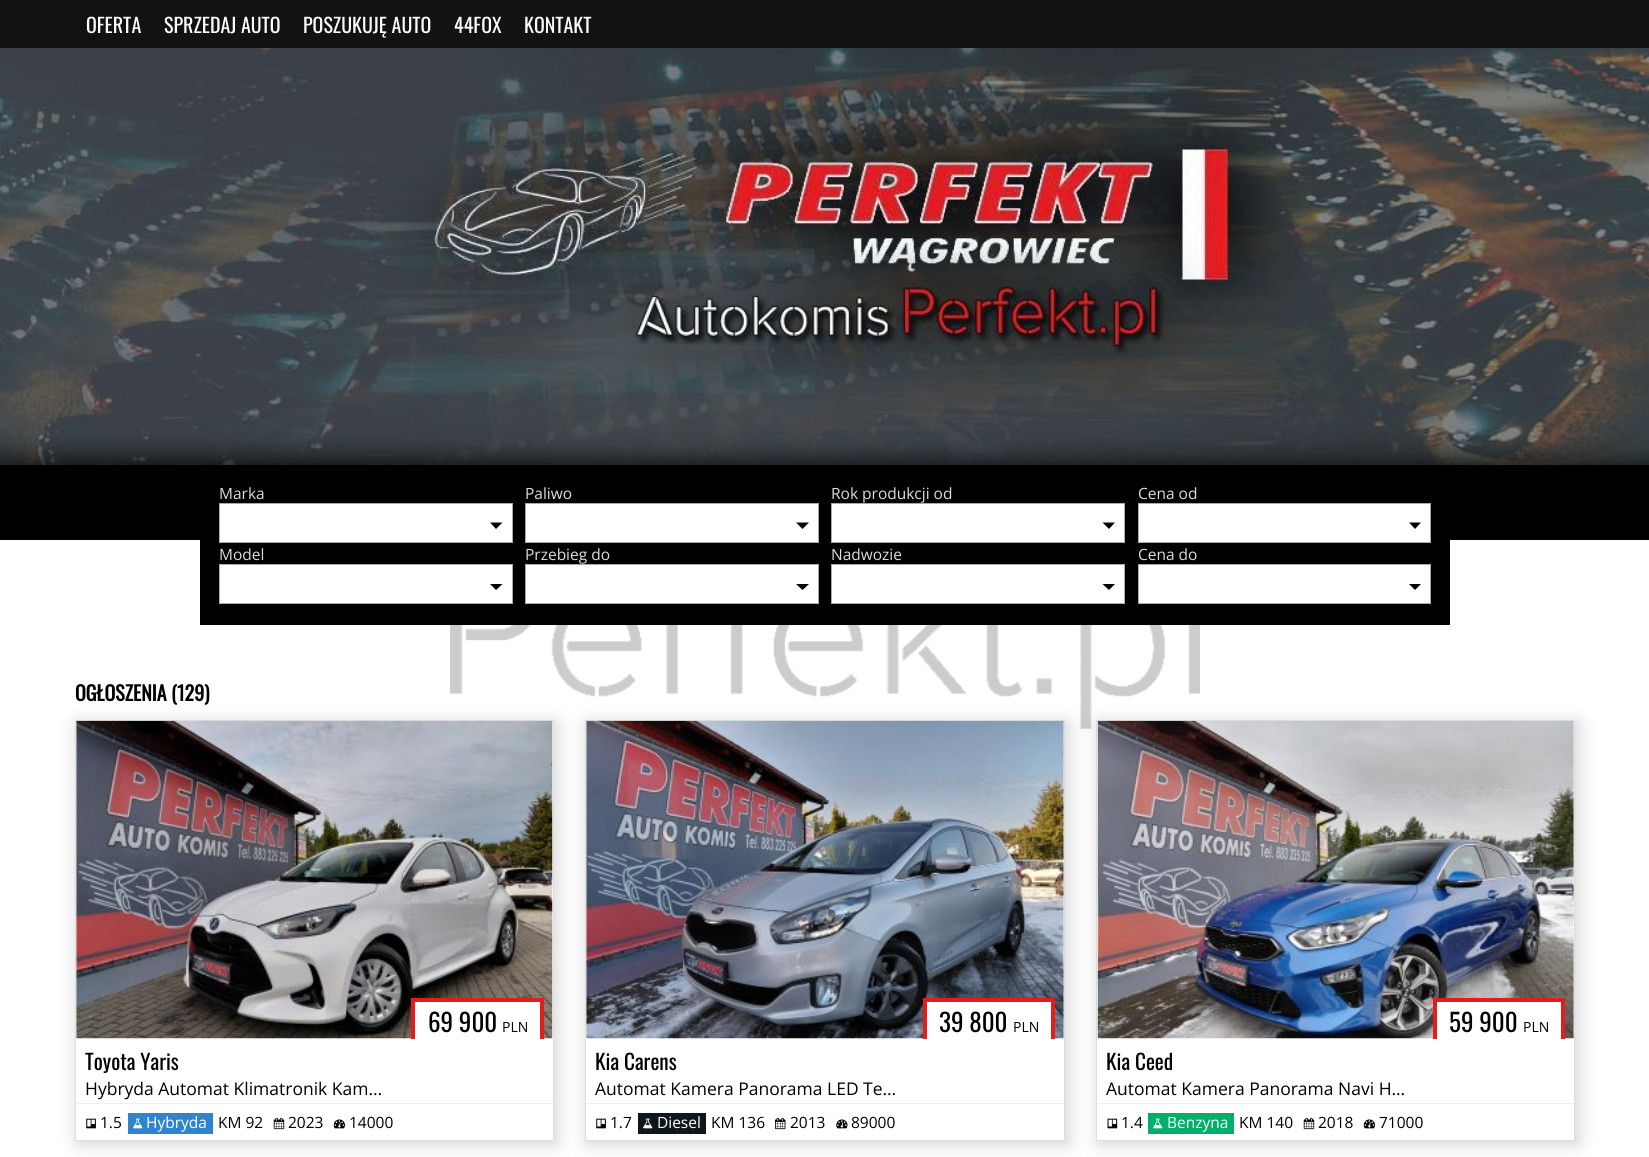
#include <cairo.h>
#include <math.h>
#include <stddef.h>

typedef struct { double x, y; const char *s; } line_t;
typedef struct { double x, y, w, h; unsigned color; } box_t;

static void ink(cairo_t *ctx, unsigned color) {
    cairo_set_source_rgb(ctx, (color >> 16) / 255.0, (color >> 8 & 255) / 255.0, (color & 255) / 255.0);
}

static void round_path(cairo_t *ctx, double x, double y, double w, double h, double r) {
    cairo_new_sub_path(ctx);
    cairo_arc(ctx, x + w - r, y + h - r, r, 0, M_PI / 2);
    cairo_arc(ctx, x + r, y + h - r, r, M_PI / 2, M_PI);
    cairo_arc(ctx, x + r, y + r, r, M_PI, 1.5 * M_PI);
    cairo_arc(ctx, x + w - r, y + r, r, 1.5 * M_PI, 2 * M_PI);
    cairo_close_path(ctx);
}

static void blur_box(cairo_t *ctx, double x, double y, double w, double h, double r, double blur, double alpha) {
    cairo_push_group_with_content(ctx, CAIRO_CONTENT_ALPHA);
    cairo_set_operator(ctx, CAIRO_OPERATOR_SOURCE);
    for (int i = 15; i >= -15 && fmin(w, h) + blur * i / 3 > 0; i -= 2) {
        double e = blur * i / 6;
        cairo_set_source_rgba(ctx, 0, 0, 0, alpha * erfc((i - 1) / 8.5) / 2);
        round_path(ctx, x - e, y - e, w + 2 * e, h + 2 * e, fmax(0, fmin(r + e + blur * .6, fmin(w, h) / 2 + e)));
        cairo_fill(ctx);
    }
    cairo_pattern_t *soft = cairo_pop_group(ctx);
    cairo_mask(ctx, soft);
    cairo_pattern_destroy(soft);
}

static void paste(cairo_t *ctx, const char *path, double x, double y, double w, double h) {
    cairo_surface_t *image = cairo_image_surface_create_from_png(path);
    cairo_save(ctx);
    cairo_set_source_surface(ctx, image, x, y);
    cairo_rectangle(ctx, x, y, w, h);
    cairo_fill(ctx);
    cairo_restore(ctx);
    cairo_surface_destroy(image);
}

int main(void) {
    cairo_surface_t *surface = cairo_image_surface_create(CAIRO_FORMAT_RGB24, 1649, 1157);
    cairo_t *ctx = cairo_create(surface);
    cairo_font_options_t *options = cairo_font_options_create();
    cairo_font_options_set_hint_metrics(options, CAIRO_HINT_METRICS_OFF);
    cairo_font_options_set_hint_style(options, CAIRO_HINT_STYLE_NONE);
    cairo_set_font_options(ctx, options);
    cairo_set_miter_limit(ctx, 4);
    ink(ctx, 0xFFFFFF);
    cairo_paint(ctx);
    ink(ctx, 0x121212);
    cairo_rectangle(ctx, 0, 0, 1649, 48);
    cairo_fill(ctx);
    cairo_select_font_face(ctx, "Oswald", CAIRO_FONT_SLANT_NORMAL, CAIRO_FONT_WEIGHT_NORMAL);
    cairo_set_font_size(ctx, 20);
    ink(ctx, 0xFFFFFF);
    {
        static const line_t items[] = {
            {86, 33, "OFERTA"},
            {164, 33, "SPRZEDAJ AUTO"},
            {303, 33, "POSZUKUJĘ AUTO"},
            {454, 33, "44FOX"},
            {524, 33, "KONTAKT"},
        };
        for (size_t i = 0; i < sizeof items / sizeof *items; i++) {
            cairo_move_to(ctx, items[i].x, items[i].y);
            cairo_show_text(ctx, items[i].s);
        }
    }
    paste(ctx, "media/1.png", 0, 48, 1649, 417);
    ink(ctx, 0x000000);
    cairo_rectangle(ctx, 0, 465, 1649, 75);
    cairo_fill(ctx);
    cairo_rectangle(ctx, 200, 540, 1250, 85);
    cairo_fill(ctx);
    cairo_select_font_face(ctx, "Open Sans", CAIRO_FONT_SLANT_NORMAL, CAIRO_FONT_WEIGHT_NORMAL);
    cairo_set_font_size(ctx, 15.5);
    ink(ctx, 0xDDDDDD);
    cairo_move_to(ctx, 219, 499);
    cairo_show_text(ctx, "Marka");
    ink(ctx, 0xFFFFFF);
    cairo_rectangle(ctx, 220, 504, 292, 38);
    cairo_fill(ctx);
    ink(ctx, 0x000000);
    cairo_new_path(ctx);
    cairo_move_to(ctx, 490, 522.5);
    cairo_line_to(ctx, 496, 529);
    cairo_line_to(ctx, 502.5, 522.5);
    cairo_close_path(ctx);
    cairo_fill(ctx);
    cairo_rectangle(ctx, 219.5, 503.5, 293, 39);
    ink(ctx, 0xAAAAAA);
    cairo_set_line_width(ctx, 1);
    cairo_stroke(ctx);
    ink(ctx, 0xDDDDDD);
    cairo_move_to(ctx, 525, 499);
    cairo_show_text(ctx, "Paliwo");
    ink(ctx, 0xFFFFFF);
    cairo_rectangle(ctx, 526, 504, 292, 38);
    cairo_fill(ctx);
    ink(ctx, 0x000000);
    cairo_new_path(ctx);
    cairo_move_to(ctx, 796, 522.5);
    cairo_line_to(ctx, 802.5, 529);
    cairo_line_to(ctx, 809, 522.5);
    cairo_close_path(ctx);
    cairo_fill(ctx);
    cairo_rectangle(ctx, 525.5, 503.5, 293, 39);
    ink(ctx, 0xAAAAAA);
    cairo_stroke(ctx);
    ink(ctx, 0xDDDDDD);
    cairo_move_to(ctx, 831, 499);
    cairo_show_text(ctx, "Rok produkcji od");
    ink(ctx, 0xFFFFFF);
    cairo_rectangle(ctx, 832, 504, 292, 38);
    cairo_fill(ctx);
    ink(ctx, 0x000000);
    cairo_new_path(ctx);
    cairo_move_to(ctx, 1102.5, 522.5);
    cairo_line_to(ctx, 1109, 529);
    cairo_line_to(ctx, 1115, 522.5);
    cairo_close_path(ctx);
    cairo_fill(ctx);
    cairo_rectangle(ctx, 831.5, 503.5, 293, 39);
    ink(ctx, 0xAAAAAA);
    cairo_stroke(ctx);
    ink(ctx, 0xDDDDDD);
    cairo_move_to(ctx, 1138, 499);
    cairo_show_text(ctx, "Cena od");
    ink(ctx, 0xFFFFFF);
    cairo_rectangle(ctx, 1139, 504, 291, 38);
    cairo_fill(ctx);
    ink(ctx, 0x000000);
    cairo_new_path(ctx);
    cairo_move_to(ctx, 1409, 522.5);
    cairo_line_to(ctx, 1415, 529);
    cairo_line_to(ctx, 1421, 522.5);
    cairo_close_path(ctx);
    cairo_fill(ctx);
    cairo_rectangle(ctx, 1138.5, 503.5, 292, 39);
    ink(ctx, 0xAAAAAA);
    cairo_stroke(ctx);
    ink(ctx, 0xDDDDDD);
    cairo_move_to(ctx, 219, 560);
    cairo_show_text(ctx, "Model");
    ink(ctx, 0xFFFFFF);
    cairo_rectangle(ctx, 220, 565, 292, 38);
    cairo_fill(ctx);
    ink(ctx, 0x000000);
    cairo_new_path(ctx);
    cairo_move_to(ctx, 490, 584);
    cairo_line_to(ctx, 496, 590);
    cairo_line_to(ctx, 502.5, 584);
    cairo_close_path(ctx);
    cairo_fill(ctx);
    cairo_rectangle(ctx, 219.5, 564.5, 293, 39);
    ink(ctx, 0xAAAAAA);
    cairo_stroke(ctx);
    ink(ctx, 0xDDDDDD);
    cairo_move_to(ctx, 525, 560);
    cairo_show_text(ctx, "Przebieg do");
    ink(ctx, 0xFFFFFF);
    cairo_rectangle(ctx, 526, 565, 292, 38);
    cairo_fill(ctx);
    ink(ctx, 0x000000);
    cairo_new_path(ctx);
    cairo_move_to(ctx, 796, 584);
    cairo_line_to(ctx, 802.5, 590);
    cairo_line_to(ctx, 809, 584);
    cairo_close_path(ctx);
    cairo_fill(ctx);
    cairo_rectangle(ctx, 525.5, 564.5, 293, 39);
    ink(ctx, 0xAAAAAA);
    cairo_stroke(ctx);
    ink(ctx, 0xDDDDDD);
    cairo_move_to(ctx, 831, 560);
    cairo_show_text(ctx, "Nadwozie");
    ink(ctx, 0xFFFFFF);
    cairo_rectangle(ctx, 832, 565, 292, 38);
    cairo_fill(ctx);
    ink(ctx, 0x000000);
    cairo_new_path(ctx);
    cairo_move_to(ctx, 1102.5, 584);
    cairo_line_to(ctx, 1109, 590);
    cairo_line_to(ctx, 1115, 584);
    cairo_close_path(ctx);
    cairo_fill(ctx);
    cairo_rectangle(ctx, 831.5, 564.5, 293, 39);
    ink(ctx, 0xAAAAAA);
    cairo_stroke(ctx);
    ink(ctx, 0xDDDDDD);
    cairo_move_to(ctx, 1138, 560);
    cairo_show_text(ctx, "Cena do");
    ink(ctx, 0xFFFFFF);
    cairo_rectangle(ctx, 1139, 565, 291, 38);
    cairo_fill(ctx);
    ink(ctx, 0x000000);
    cairo_new_path(ctx);
    cairo_move_to(ctx, 1409, 584);
    cairo_line_to(ctx, 1415, 590);
    cairo_line_to(ctx, 1421, 584);
    cairo_close_path(ctx);
    cairo_fill(ctx);
    cairo_rectangle(ctx, 1138.5, 564.5, 292, 39);
    ink(ctx, 0xAAAAAA);
    cairo_stroke(ctx);
    paste(ctx, "media/2.png", 450, 625, 750, 104);
    cairo_select_font_face(ctx, "Oswald", CAIRO_FONT_SLANT_NORMAL, CAIRO_FONT_WEIGHT_BOLD);
    cairo_set_font_size(ctx, 20);
    ink(ctx, 0x000000);
    cairo_move_to(ctx, 75, 701);
    cairo_show_text(ctx, "OGŁOSZENIA (129)");
    ink(ctx, 0x000000);
    blur_box(ctx, 78, 723, 478, 421, 0, 9.5, 0.18);
    ink(ctx, 0xFFFFFF);
    cairo_rectangle(ctx, 75.5, 720.5, 478, 420);
    cairo_fill_preserve(ctx);
    ink(ctx, 0xDDDDDD);
    cairo_stroke(ctx);
    paste(ctx, "media/3.png", 76, 720, 477, 319);
    {
        static const box_t items[] = {
            {415, 1002, 125, 37, 0xFFFFFF},
            {411, 998, 133, 4, 0xE31D1B},
            {540, 998, 4, 41, 0xE31D1B},
            {411, 998, 4, 41, 0xE31D1B},
        };
        for (size_t i = 0; i < sizeof items / sizeof *items; i++) {
            ink(ctx, items[i].color);
            cairo_rectangle(ctx, items[i].x, items[i].y, items[i].w, items[i].h);
            cairo_fill(ctx);
        }
    }
    cairo_select_font_face(ctx, "Oswald", CAIRO_FONT_SLANT_NORMAL, CAIRO_FONT_WEIGHT_NORMAL);
    cairo_set_font_size(ctx, 25);
    ink(ctx, 0x000000);
    cairo_move_to(ctx, 428, 1032);
    cairo_show_text(ctx, "69 900");
    cairo_select_font_face(ctx, "Open Sans", CAIRO_FONT_SLANT_NORMAL, CAIRO_FONT_WEIGHT_NORMAL);
    cairo_set_font_size(ctx, 14);
    cairo_move_to(ctx, 502, 1032);
    cairo_show_text(ctx, "PLN");
    cairo_select_font_face(ctx, "Oswald", CAIRO_FONT_SLANT_NORMAL, CAIRO_FONT_WEIGHT_NORMAL);
    cairo_set_font_size(ctx, 21.25);
    cairo_move_to(ctx, 85, 1070);
    cairo_show_text(ctx, "Toyota Yaris");
    cairo_select_font_face(ctx, "Open Sans", CAIRO_FONT_SLANT_NORMAL, CAIRO_FONT_WEIGHT_NORMAL);
    cairo_set_font_size(ctx, 17.5);
    cairo_move_to(ctx, 85, 1095);
    cairo_show_text(ctx, "Hybryda Automat Klimatronik Kam…");
    ink(ctx, 0xEEEEEE);
    cairo_rectangle(ctx, 76, 1103, 477, 1);
    cairo_fill(ctx);
    paste(ctx, "media/4.png", 86, 1118, 10, 11);
    cairo_set_font_size(ctx, 15.5);
    ink(ctx, 0x000000);
    cairo_move_to(ctx, 100, 1128);
    cairo_show_text(ctx, "1.5");
    ink(ctx, 0x2F84CD);
    cairo_rectangle(ctx, 128, 1113, 85, 21);
    cairo_fill(ctx);
    paste(ctx, "media/5.png", 133, 1118, 10, 11);
    ink(ctx, 0xFFFFFF);
    cairo_move_to(ctx, 146, 1128);
    cairo_show_text(ctx, "Hybryda");
    ink(ctx, 0x000000);
    cairo_move_to(ctx, 218, 1128);
    cairo_show_text(ctx, "KM 92");
    paste(ctx, "media/6.png", 273, 1117, 12, 13);
    cairo_move_to(ctx, 288, 1128);
    cairo_show_text(ctx, "2023");
    paste(ctx, "media/7.png", 333, 1119, 12, 10);
    cairo_move_to(ctx, 349, 1128);
    cairo_show_text(ctx, "14000");
    cairo_save(ctx);
    cairo_set_fill_rule(ctx, CAIRO_FILL_RULE_EVEN_ODD);
    cairo_new_path(ctx);
    cairo_move_to(ctx, 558, 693);
    cairo_line_to(ctx, 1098, 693);
    cairo_line_to(ctx, 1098, 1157);
    cairo_line_to(ctx, 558, 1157);
    cairo_close_path(ctx);
    cairo_move_to(ctx, 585, 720);
    cairo_line_to(ctx, 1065, 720);
    cairo_line_to(ctx, 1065, 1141);
    cairo_line_to(ctx, 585, 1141);
    cairo_close_path(ctx);
    cairo_clip(ctx);
    ink(ctx, 0x000000);
    blur_box(ctx, 588, 723, 480, 421, 0, 9.5, 0.18);
    cairo_restore(ctx);
    cairo_rectangle(ctx, 585.5, 720.5, 479, 420);
    ink(ctx, 0xDDDDDD);
    cairo_stroke(ctx);
    paste(ctx, "media/8.png", 586, 720, 478, 319);
    {
        static const box_t items[] = {
            {927, 1002, 124, 37, 0xFFFFFF},
            {923, 998, 132, 4, 0xE31D1B},
            {1051, 998, 4, 41, 0xE31D1B},
            {923, 998, 4, 41, 0xE31D1B},
        };
        for (size_t i = 0; i < sizeof items / sizeof *items; i++) {
            ink(ctx, items[i].color);
            cairo_rectangle(ctx, items[i].x, items[i].y, items[i].w, items[i].h);
            cairo_fill(ctx);
        }
    }
    cairo_select_font_face(ctx, "Oswald", CAIRO_FONT_SLANT_NORMAL, CAIRO_FONT_WEIGHT_NORMAL);
    cairo_set_font_size(ctx, 25);
    ink(ctx, 0x000000);
    cairo_move_to(ctx, 939, 1032);
    cairo_show_text(ctx, "39 800");
    cairo_select_font_face(ctx, "Open Sans", CAIRO_FONT_SLANT_NORMAL, CAIRO_FONT_WEIGHT_NORMAL);
    cairo_set_font_size(ctx, 14);
    cairo_move_to(ctx, 1013, 1032);
    cairo_show_text(ctx, "PLN");
    cairo_select_font_face(ctx, "Oswald", CAIRO_FONT_SLANT_NORMAL, CAIRO_FONT_WEIGHT_NORMAL);
    cairo_set_font_size(ctx, 21.25);
    cairo_move_to(ctx, 595, 1070);
    cairo_show_text(ctx, "Kia Carens");
    cairo_select_font_face(ctx, "Open Sans", CAIRO_FONT_SLANT_NORMAL, CAIRO_FONT_WEIGHT_NORMAL);
    cairo_set_font_size(ctx, 17.5);
    cairo_move_to(ctx, 595, 1095);
    cairo_show_text(ctx, "Automat Kamera Panorama LED Te…");
    ink(ctx, 0xEEEEEE);
    cairo_rectangle(ctx, 586, 1103, 478, 1);
    cairo_fill(ctx);
    paste(ctx, "media/4.png", 596, 1118, 10, 11);
    cairo_set_font_size(ctx, 15.5);
    ink(ctx, 0x000000);
    cairo_move_to(ctx, 610, 1128);
    cairo_show_text(ctx, "1.7");
    ink(ctx, 0x0F161C);
    cairo_rectangle(ctx, 638, 1113, 68, 21);
    cairo_fill(ctx);
    paste(ctx, "media/9.png", 643, 1118, 10, 11);
    ink(ctx, 0xFFFFFF);
    cairo_move_to(ctx, 657, 1128);
    cairo_show_text(ctx, "Diesel");
    ink(ctx, 0x000000);
    cairo_move_to(ctx, 711, 1128);
    cairo_show_text(ctx, "KM 136");
    paste(ctx, "media/10.png", 775, 1117, 11, 13);
    cairo_move_to(ctx, 790, 1128);
    cairo_show_text(ctx, "2013");
    paste(ctx, "media/11.png", 836, 1119, 12, 10);
    cairo_move_to(ctx, 851, 1128);
    cairo_show_text(ctx, "89000");
    ink(ctx, 0x000000);
    blur_box(ctx, 1099, 723, 479, 421, 0, 9.5, 0.18);
    ink(ctx, 0xFFFFFF);
    cairo_rectangle(ctx, 1096.5, 720.5, 478, 420);
    cairo_fill_preserve(ctx);
    ink(ctx, 0xDDDDDD);
    cairo_stroke(ctx);
    paste(ctx, "media/12.png", 1097, 720, 477, 319);
    {
        static const box_t items[] = {
            {1437, 1002, 124, 37, 0xFFFFFF},
            {1433, 998, 132, 4, 0xE31D1B},
            {1561, 998, 4, 41, 0xE31D1B},
            {1433, 998, 4, 41, 0xE31D1B},
        };
        for (size_t i = 0; i < sizeof items / sizeof *items; i++) {
            ink(ctx, items[i].color);
            cairo_rectangle(ctx, items[i].x, items[i].y, items[i].w, items[i].h);
            cairo_fill(ctx);
        }
    }
    cairo_select_font_face(ctx, "Oswald", CAIRO_FONT_SLANT_NORMAL, CAIRO_FONT_WEIGHT_NORMAL);
    cairo_set_font_size(ctx, 25);
    ink(ctx, 0x000000);
    cairo_move_to(ctx, 1449, 1032);
    cairo_show_text(ctx, "59 900");
    cairo_select_font_face(ctx, "Open Sans", CAIRO_FONT_SLANT_NORMAL, CAIRO_FONT_WEIGHT_NORMAL);
    cairo_set_font_size(ctx, 14);
    cairo_move_to(ctx, 1523, 1032);
    cairo_show_text(ctx, "PLN");
    cairo_select_font_face(ctx, "Oswald", CAIRO_FONT_SLANT_NORMAL, CAIRO_FONT_WEIGHT_NORMAL);
    cairo_set_font_size(ctx, 21.25);
    cairo_move_to(ctx, 1106, 1070);
    cairo_show_text(ctx, "Kia Ceed");
    cairo_select_font_face(ctx, "Open Sans", CAIRO_FONT_SLANT_NORMAL, CAIRO_FONT_WEIGHT_NORMAL);
    cairo_set_font_size(ctx, 17.5);
    cairo_move_to(ctx, 1106, 1095);
    cairo_show_text(ctx, "Automat Kamera Panorama Navi H…");
    ink(ctx, 0xEEEEEE);
    cairo_rectangle(ctx, 1098, 1103, 476, 1);
    cairo_fill(ctx);
    paste(ctx, "media/13.png", 1107, 1118, 11, 11);
    cairo_set_font_size(ctx, 15.5);
    ink(ctx, 0x000000);
    cairo_move_to(ctx, 1121, 1128);
    cairo_show_text(ctx, "1.4");
    ink(ctx, 0x00AF6A);
    cairo_rectangle(ctx, 1148, 1113, 86, 21);
    cairo_fill(ctx);
    paste(ctx, "media/14.png", 1153, 1118, 10, 11);
    ink(ctx, 0xFFFFFF);
    cairo_move_to(ctx, 1167, 1128);
    cairo_show_text(ctx, "Benzyna");
    ink(ctx, 0x000000);
    cairo_move_to(ctx, 1239, 1128);
    cairo_show_text(ctx, "KM 140");
    paste(ctx, "media/6.png", 1303, 1117, 12, 13);
    cairo_move_to(ctx, 1318, 1128);
    cairo_show_text(ctx, "2018");
    paste(ctx, "media/7.png", 1363, 1119, 12, 10);
    cairo_move_to(ctx, 1379, 1128);
    cairo_show_text(ctx, "71000");
    cairo_surface_write_to_png(surface, "image.png");
    cairo_font_options_destroy(options);
    cairo_destroy(ctx);
    cairo_surface_destroy(surface);
    return 0;
}
